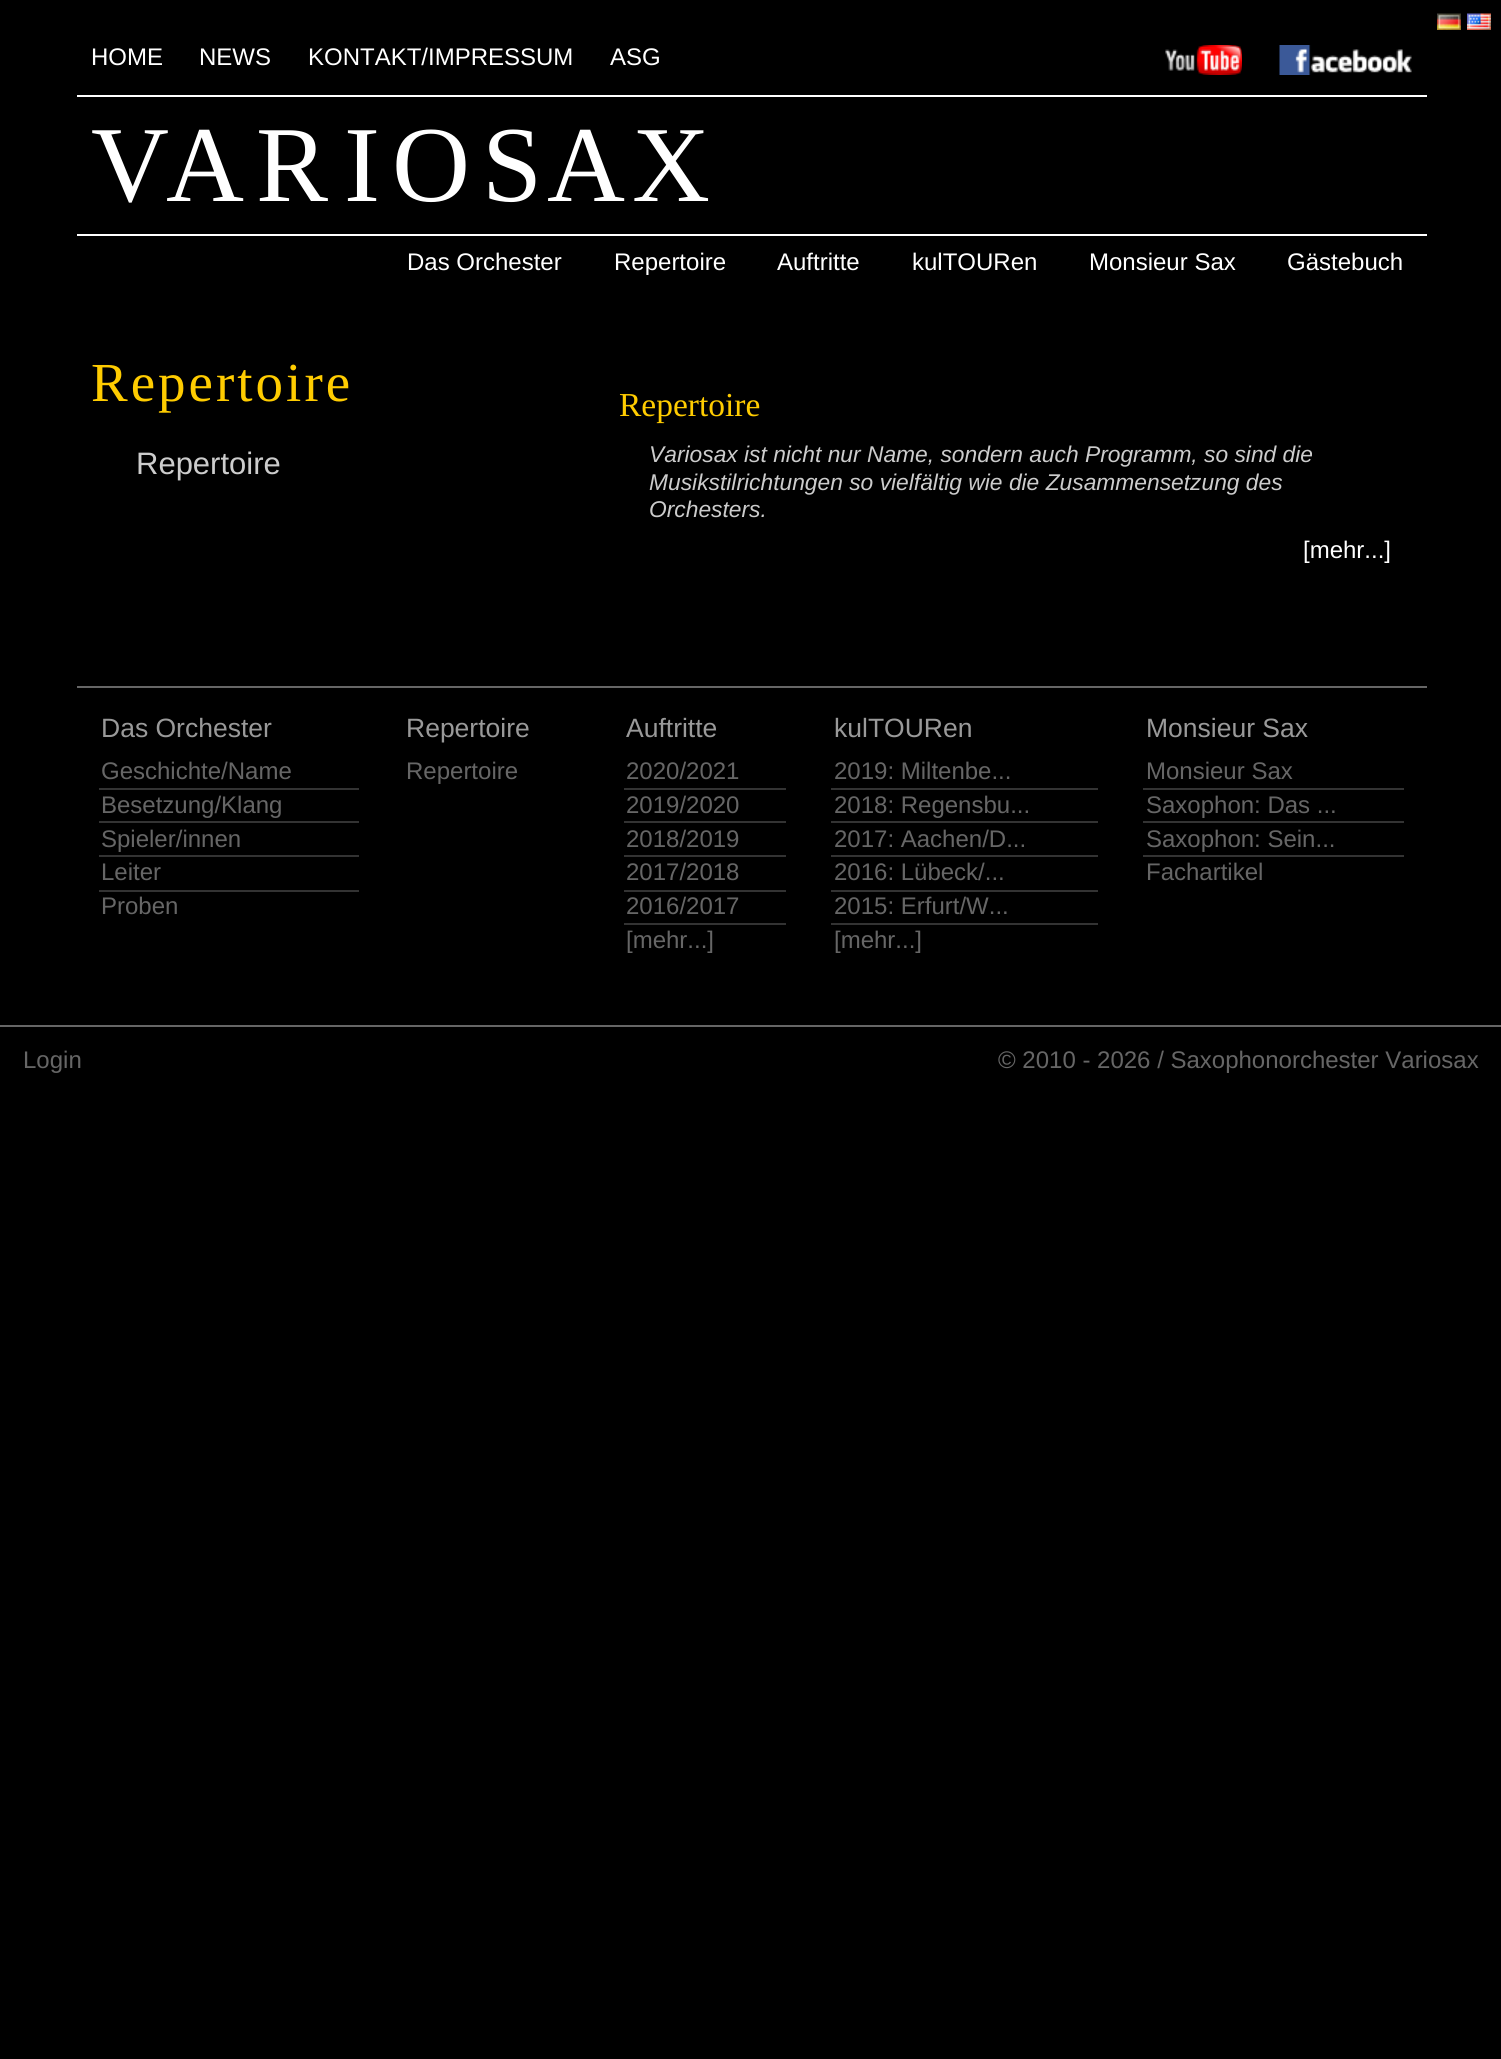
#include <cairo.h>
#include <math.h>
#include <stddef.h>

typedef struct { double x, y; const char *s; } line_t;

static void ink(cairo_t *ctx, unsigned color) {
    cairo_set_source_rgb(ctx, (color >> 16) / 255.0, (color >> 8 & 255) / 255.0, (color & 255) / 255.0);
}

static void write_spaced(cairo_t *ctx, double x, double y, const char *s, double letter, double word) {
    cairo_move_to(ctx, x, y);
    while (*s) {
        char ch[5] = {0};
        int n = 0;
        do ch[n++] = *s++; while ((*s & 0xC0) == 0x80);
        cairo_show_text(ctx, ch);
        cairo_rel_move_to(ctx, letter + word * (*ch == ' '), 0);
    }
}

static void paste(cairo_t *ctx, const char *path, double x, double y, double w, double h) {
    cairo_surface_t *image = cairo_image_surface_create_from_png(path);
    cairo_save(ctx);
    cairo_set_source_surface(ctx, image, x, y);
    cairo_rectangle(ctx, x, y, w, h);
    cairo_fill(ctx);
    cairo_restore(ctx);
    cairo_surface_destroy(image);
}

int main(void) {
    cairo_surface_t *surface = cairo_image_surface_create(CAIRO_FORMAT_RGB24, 1501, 2059);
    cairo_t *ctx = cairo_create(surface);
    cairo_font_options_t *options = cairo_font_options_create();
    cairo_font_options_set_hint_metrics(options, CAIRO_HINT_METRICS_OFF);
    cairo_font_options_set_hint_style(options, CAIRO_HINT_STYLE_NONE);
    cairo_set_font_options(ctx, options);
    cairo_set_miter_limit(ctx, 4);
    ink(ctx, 0x000000);
    cairo_paint(ctx);
    paste(ctx, "media/1.png", 1437, 13, 24, 17);
    paste(ctx, "media/2.png", 1467, 13, 24, 17);
    cairo_select_font_face(ctx, "Liberation Sans", CAIRO_FONT_SLANT_NORMAL, CAIRO_FONT_WEIGHT_NORMAL);
    cairo_set_font_size(ctx, 24);
    ink(ctx, 0xFFFFFF);
    {
        static const line_t items[] = {
            {91, 65, "HOME"},
            {199, 65, "NEWS"},
            {308, 65, "KONTAKT/IMPRESSUM"},
            {610, 65, "ASG"},
        };
        for (size_t i = 0; i < sizeof items / sizeof *items; i++) {
            cairo_move_to(ctx, items[i].x, items[i].y);
            cairo_show_text(ctx, items[i].s);
        }
    }
    paste(ctx, "media/3.png", 1165, 45, 77, 30);
    paste(ctx, "media/4.png", 1279, 45, 133, 30);
    cairo_rectangle(ctx, 77, 95, 1350, 2);
    cairo_fill(ctx);
    cairo_rectangle(ctx, 77, 234, 1350, 2);
    cairo_fill(ctx);
    cairo_select_font_face(ctx, "Liberation Serif", CAIRO_FONT_SLANT_NORMAL, CAIRO_FONT_WEIGHT_NORMAL);
    cairo_set_font_size(ctx, 108);
    {
        static const line_t items[] = {
            {91, 201, "V"},
            {166, 201, "A"},
            {256, 201, "R"},
            {344, 201, "I"},
            {392, 201, "O"},
            {482, 201, "S"},
            {547, 201, "A"},
            {632, 201, "X"},
        };
        for (size_t i = 0; i < sizeof items / sizeof *items; i++) {
            cairo_move_to(ctx, items[i].x, items[i].y);
            cairo_show_text(ctx, items[i].s);
        }
    }
    cairo_select_font_face(ctx, "Liberation Sans", CAIRO_FONT_SLANT_NORMAL, CAIRO_FONT_WEIGHT_NORMAL);
    cairo_set_font_size(ctx, 24);
    {
        static const line_t items[] = {
            {407, 270, "Das Orchester"},
            {614, 270, "Repertoire"},
            {777, 270, "Auftritte"},
            {912, 270, "kulTOURen"},
            {1089, 270, "Monsieur Sax"},
            {1287, 270, "Gästebuch"},
        };
        for (size_t i = 0; i < sizeof items / sizeof *items; i++) {
            cairo_move_to(ctx, items[i].x, items[i].y);
            cairo_show_text(ctx, items[i].s);
        }
    }
    cairo_select_font_face(ctx, "Liberation Serif", CAIRO_FONT_SLANT_NORMAL, CAIRO_FONT_WEIGHT_NORMAL);
    cairo_set_font_size(ctx, 55);
    ink(ctx, 0xFFCC00);
    write_spaced(ctx, 91, 401, "Repertoire", 3, 0);
    cairo_select_font_face(ctx, "Liberation Sans", CAIRO_FONT_SLANT_NORMAL, CAIRO_FONT_WEIGHT_NORMAL);
    cairo_set_font_size(ctx, 31);
    ink(ctx, 0xCCCCCC);
    cairo_move_to(ctx, 136, 474);
    cairo_show_text(ctx, "Repertoire");
    cairo_select_font_face(ctx, "Liberation Serif", CAIRO_FONT_SLANT_NORMAL, CAIRO_FONT_WEIGHT_NORMAL);
    cairo_set_font_size(ctx, 33.5);
    ink(ctx, 0xFFCC00);
    cairo_move_to(ctx, 619, 416);
    cairo_show_text(ctx, "Repertoire");
    cairo_select_font_face(ctx, "Liberation Sans", CAIRO_FONT_SLANT_ITALIC, CAIRO_FONT_WEIGHT_NORMAL);
    cairo_set_font_size(ctx, 22.8);
    ink(ctx, 0xCCCCCC);
    {
        static const line_t items[] = {
            {649, 462, "Variosax ist nicht nur Name, sondern auch Programm, so sind die"},
            {649, 490, "Musikstilrichtungen so vielfältig wie die Zusammensetzung des"},
            {649, 517, "Orchesters."},
        };
        for (size_t i = 0; i < sizeof items / sizeof *items; i++) {
            cairo_move_to(ctx, items[i].x, items[i].y);
            cairo_show_text(ctx, items[i].s);
        }
    }
    cairo_select_font_face(ctx, "Liberation Sans", CAIRO_FONT_SLANT_NORMAL, CAIRO_FONT_WEIGHT_NORMAL);
    cairo_set_font_size(ctx, 24);
    ink(ctx, 0xFFFFFF);
    cairo_move_to(ctx, 1303, 558);
    cairo_show_text(ctx, "[mehr...]");
    ink(ctx, 0x666666);
    cairo_rectangle(ctx, 77, 686, 1350, 2);
    cairo_fill(ctx);
    cairo_set_font_size(ctx, 26.5);
    ink(ctx, 0x999999);
    cairo_move_to(ctx, 101, 737);
    cairo_show_text(ctx, "Das Orchester");
    cairo_set_font_size(ctx, 24);
    ink(ctx, 0x666666);
    cairo_move_to(ctx, 101, 779);
    cairo_show_text(ctx, "Geschichte/Name");
    ink(ctx, 0x333333);
    cairo_rectangle(ctx, 99, 788, 260, 2);
    cairo_fill(ctx);
    ink(ctx, 0x666666);
    cairo_move_to(ctx, 101, 813);
    cairo_show_text(ctx, "Besetzung/Klang");
    ink(ctx, 0x333333);
    cairo_rectangle(ctx, 99, 821, 260, 2);
    cairo_fill(ctx);
    ink(ctx, 0x666666);
    cairo_move_to(ctx, 101, 847);
    cairo_show_text(ctx, "Spieler/innen");
    ink(ctx, 0x333333);
    cairo_rectangle(ctx, 99, 855, 260, 2);
    cairo_fill(ctx);
    ink(ctx, 0x666666);
    cairo_move_to(ctx, 101, 880);
    cairo_show_text(ctx, "Leiter");
    ink(ctx, 0x333333);
    cairo_rectangle(ctx, 99, 890, 260, 2);
    cairo_fill(ctx);
    ink(ctx, 0x666666);
    cairo_move_to(ctx, 101, 914);
    cairo_show_text(ctx, "Proben");
    cairo_set_font_size(ctx, 26.5);
    ink(ctx, 0x999999);
    cairo_move_to(ctx, 406, 737);
    cairo_show_text(ctx, "Repertoire");
    cairo_set_font_size(ctx, 24);
    ink(ctx, 0x666666);
    cairo_move_to(ctx, 406, 779);
    cairo_show_text(ctx, "Repertoire");
    cairo_set_font_size(ctx, 26.5);
    ink(ctx, 0x999999);
    cairo_move_to(ctx, 626, 737);
    cairo_show_text(ctx, "Auftritte");
    cairo_set_font_size(ctx, 24);
    ink(ctx, 0x666666);
    cairo_move_to(ctx, 626, 779);
    cairo_show_text(ctx, "2020/2021");
    ink(ctx, 0x333333);
    cairo_rectangle(ctx, 624, 788, 162, 2);
    cairo_fill(ctx);
    ink(ctx, 0x666666);
    cairo_move_to(ctx, 626, 813);
    cairo_show_text(ctx, "2019/2020");
    ink(ctx, 0x333333);
    cairo_rectangle(ctx, 624, 821, 162, 2);
    cairo_fill(ctx);
    ink(ctx, 0x666666);
    cairo_move_to(ctx, 626, 847);
    cairo_show_text(ctx, "2018/2019");
    ink(ctx, 0x333333);
    cairo_rectangle(ctx, 624, 855, 162, 2);
    cairo_fill(ctx);
    ink(ctx, 0x666666);
    cairo_move_to(ctx, 626, 880);
    cairo_show_text(ctx, "2017/2018");
    ink(ctx, 0x333333);
    cairo_rectangle(ctx, 624, 890, 162, 2);
    cairo_fill(ctx);
    ink(ctx, 0x666666);
    cairo_move_to(ctx, 626, 914);
    cairo_show_text(ctx, "2016/2017");
    ink(ctx, 0x333333);
    cairo_rectangle(ctx, 624, 923, 162, 2);
    cairo_fill(ctx);
    ink(ctx, 0x666666);
    cairo_move_to(ctx, 626, 948);
    cairo_show_text(ctx, "[mehr...]");
    cairo_set_font_size(ctx, 26.5);
    ink(ctx, 0x999999);
    cairo_move_to(ctx, 834, 737);
    cairo_show_text(ctx, "kulTOURen");
    cairo_set_font_size(ctx, 24);
    ink(ctx, 0x666666);
    cairo_move_to(ctx, 834, 779);
    cairo_show_text(ctx, "2019: Miltenbe...");
    ink(ctx, 0x333333);
    cairo_rectangle(ctx, 831, 788, 267, 2);
    cairo_fill(ctx);
    ink(ctx, 0x666666);
    cairo_move_to(ctx, 834, 813);
    cairo_show_text(ctx, "2018: Regensbu...");
    ink(ctx, 0x333333);
    cairo_rectangle(ctx, 831, 821, 267, 2);
    cairo_fill(ctx);
    ink(ctx, 0x666666);
    cairo_move_to(ctx, 834, 847);
    cairo_show_text(ctx, "2017: Aachen/D...");
    ink(ctx, 0x333333);
    cairo_rectangle(ctx, 831, 855, 267, 2);
    cairo_fill(ctx);
    ink(ctx, 0x666666);
    cairo_move_to(ctx, 834, 880);
    cairo_show_text(ctx, "2016: Lübeck/...");
    ink(ctx, 0x333333);
    cairo_rectangle(ctx, 831, 890, 267, 2);
    cairo_fill(ctx);
    ink(ctx, 0x666666);
    cairo_move_to(ctx, 834, 914);
    cairo_show_text(ctx, "2015: Erfurt/W...");
    ink(ctx, 0x333333);
    cairo_rectangle(ctx, 831, 923, 267, 2);
    cairo_fill(ctx);
    ink(ctx, 0x666666);
    cairo_move_to(ctx, 834, 948);
    cairo_show_text(ctx, "[mehr...]");
    cairo_set_font_size(ctx, 26.5);
    ink(ctx, 0x999999);
    cairo_move_to(ctx, 1146, 737);
    cairo_show_text(ctx, "Monsieur Sax");
    cairo_set_font_size(ctx, 24);
    ink(ctx, 0x666666);
    cairo_move_to(ctx, 1146, 779);
    cairo_show_text(ctx, "Monsieur Sax");
    ink(ctx, 0x333333);
    cairo_rectangle(ctx, 1143, 788, 261, 2);
    cairo_fill(ctx);
    ink(ctx, 0x666666);
    cairo_move_to(ctx, 1146, 813);
    cairo_show_text(ctx, "Saxophon: Das ...");
    ink(ctx, 0x333333);
    cairo_rectangle(ctx, 1143, 821, 261, 2);
    cairo_fill(ctx);
    ink(ctx, 0x666666);
    cairo_move_to(ctx, 1146, 847);
    cairo_show_text(ctx, "Saxophon: Sein...");
    ink(ctx, 0x333333);
    cairo_rectangle(ctx, 1143, 855, 261, 2);
    cairo_fill(ctx);
    ink(ctx, 0x666666);
    cairo_move_to(ctx, 1146, 880);
    cairo_show_text(ctx, "Fachartikel");
    cairo_rectangle(ctx, 0, 1025, 1501, 2);
    cairo_fill(ctx);
    cairo_move_to(ctx, 23, 1068);
    cairo_show_text(ctx, "Login");
    cairo_move_to(ctx, 998, 1068);
    cairo_show_text(ctx, "© 2010 - 2026 / Saxophonorchester Variosax");
    cairo_surface_write_to_png(surface, "image.png");
    cairo_font_options_destroy(options);
    cairo_destroy(ctx);
    cairo_surface_destroy(surface);
    return 0;
}
